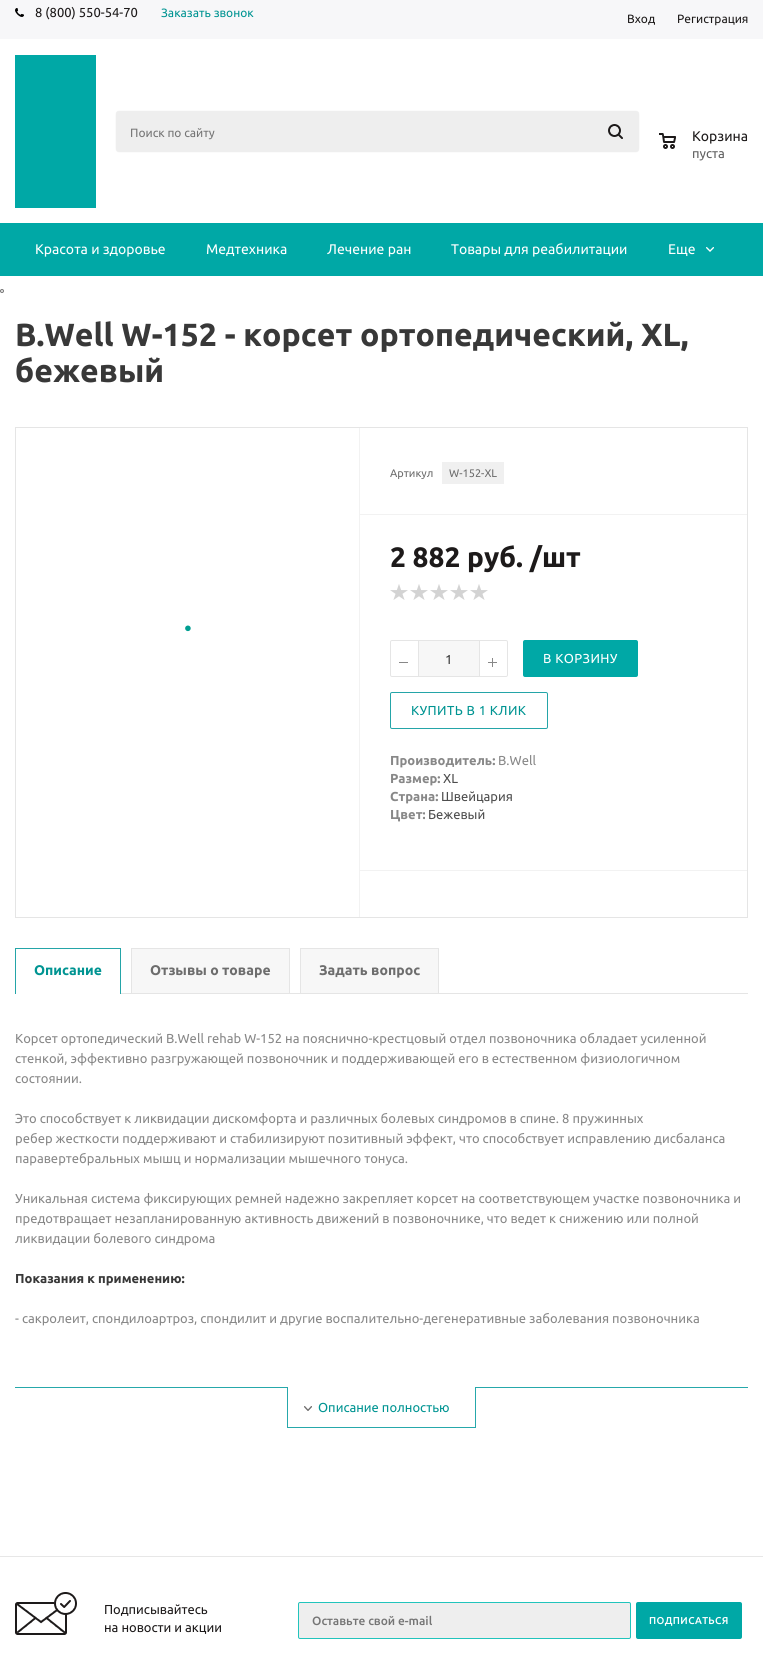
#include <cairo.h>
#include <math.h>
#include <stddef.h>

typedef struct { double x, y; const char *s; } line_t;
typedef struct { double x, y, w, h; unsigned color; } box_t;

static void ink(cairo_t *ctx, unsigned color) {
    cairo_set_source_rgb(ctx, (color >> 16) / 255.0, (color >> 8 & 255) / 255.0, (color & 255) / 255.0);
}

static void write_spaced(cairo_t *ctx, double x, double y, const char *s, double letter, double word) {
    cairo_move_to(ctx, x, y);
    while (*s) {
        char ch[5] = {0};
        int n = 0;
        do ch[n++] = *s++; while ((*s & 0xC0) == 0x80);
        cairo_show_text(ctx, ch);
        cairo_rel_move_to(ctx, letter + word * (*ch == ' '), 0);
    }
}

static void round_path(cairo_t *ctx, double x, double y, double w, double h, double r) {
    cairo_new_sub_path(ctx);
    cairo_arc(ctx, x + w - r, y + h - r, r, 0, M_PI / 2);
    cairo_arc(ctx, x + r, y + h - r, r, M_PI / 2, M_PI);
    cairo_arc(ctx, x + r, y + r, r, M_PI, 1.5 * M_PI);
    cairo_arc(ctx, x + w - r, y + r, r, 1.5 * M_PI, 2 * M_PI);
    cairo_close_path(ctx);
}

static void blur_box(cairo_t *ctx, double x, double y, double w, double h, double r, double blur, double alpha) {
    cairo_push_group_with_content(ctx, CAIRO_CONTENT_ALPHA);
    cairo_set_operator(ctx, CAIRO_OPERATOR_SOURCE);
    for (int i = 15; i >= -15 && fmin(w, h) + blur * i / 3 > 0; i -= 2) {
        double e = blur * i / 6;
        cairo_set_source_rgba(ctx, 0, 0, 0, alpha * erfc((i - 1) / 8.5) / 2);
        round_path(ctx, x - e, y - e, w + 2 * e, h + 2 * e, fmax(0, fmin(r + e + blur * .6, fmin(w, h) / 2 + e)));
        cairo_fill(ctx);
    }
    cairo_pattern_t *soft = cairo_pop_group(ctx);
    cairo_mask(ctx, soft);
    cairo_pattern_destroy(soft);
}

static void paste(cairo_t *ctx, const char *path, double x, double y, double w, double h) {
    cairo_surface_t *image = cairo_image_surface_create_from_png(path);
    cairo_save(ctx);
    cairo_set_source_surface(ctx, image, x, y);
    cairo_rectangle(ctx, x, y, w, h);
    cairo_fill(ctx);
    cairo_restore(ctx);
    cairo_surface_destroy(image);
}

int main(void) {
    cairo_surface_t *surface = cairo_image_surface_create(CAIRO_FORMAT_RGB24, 763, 1666);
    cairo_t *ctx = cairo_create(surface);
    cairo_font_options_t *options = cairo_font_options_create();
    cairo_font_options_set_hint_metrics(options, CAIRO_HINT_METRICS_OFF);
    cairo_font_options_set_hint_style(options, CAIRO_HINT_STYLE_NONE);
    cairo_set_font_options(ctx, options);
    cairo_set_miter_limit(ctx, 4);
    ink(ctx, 0xFFFFFF);
    cairo_paint(ctx);
    ink(ctx, 0xF7F7F9);
    cairo_rectangle(ctx, 0, 0, 763, 39);
    cairo_fill(ctx);
    paste(ctx, "media/1.png", 15, 8, 9, 9);
    cairo_select_font_face(ctx, "Ubuntu", CAIRO_FONT_SLANT_NORMAL, CAIRO_FONT_WEIGHT_NORMAL);
    cairo_set_font_size(ctx, 13);
    ink(ctx, 0x1D1A1A);
    cairo_move_to(ctx, 35, 17);
    cairo_show_text(ctx, "8 (800) 550-54-70");
    cairo_set_font_size(ctx, 12);
    ink(ctx, 0x009492);
    cairo_move_to(ctx, 161, 17);
    cairo_show_text(ctx, "Заказать звонок");
    ink(ctx, 0x1D1A1A);
    cairo_move_to(ctx, 627, 23);
    cairo_show_text(ctx, "Вход");
    cairo_move_to(ctx, 677, 23);
    cairo_show_text(ctx, "Регистрация");
    ink(ctx, 0x00A8A6);
    cairo_rectangle(ctx, 15, 55, 81, 153);
    cairo_fill(ctx);
    ink(ctx, 0xEDEDED);
    blur_box(ctx, 116, 111, 523, 41, 3, 0.5, 1);
    ink(ctx, 0xEEEEEE);
    round_path(ctx, 116, 111, 523, 41, 3);
    cairo_fill(ctx);
    ink(ctx, 0x757575);
    cairo_move_to(ctx, 130, 137);
    cairo_show_text(ctx, "Поиск по сайту");
    paste(ctx, "media/2.png", 608, 124, 15, 15);
    paste(ctx, "media/3.png", 659, 133, 17, 16);
    cairo_set_font_size(ctx, 14);
    ink(ctx, 0x1D1A1A);
    cairo_move_to(ctx, 692, 141);
    cairo_show_text(ctx, "Корзина");
    cairo_set_font_size(ctx, 13);
    ink(ctx, 0x5F5F5F);
    cairo_move_to(ctx, 692, 158);
    cairo_show_text(ctx, "пуста");
    ink(ctx, 0x00A8A6);
    cairo_rectangle(ctx, 0, 223, 763, 53);
    cairo_fill(ctx);
    cairo_set_font_size(ctx, 14);
    ink(ctx, 0xFFFFFF);
    {
        static const line_t items[] = {
            {35, 254, "Красота и здоровье"},
            {206, 254, "Медтехника"},
            {327, 254, "Лечение ран"},
            {451, 254, "Товары для реабилитации"},
            {668, 254, "Еще"},
        };
        for (size_t i = 0; i < sizeof items / sizeof *items; i++) {
            cairo_move_to(ctx, items[i].x, items[i].y);
            cairo_show_text(ctx, items[i].s);
        }
    }
    paste(ctx, "media/4.png", 706, 247, 8, 5);
    ink(ctx, 0xEFEFEF);
    cairo_arc(ctx, 2, 291, 1.5, 0, 2 * M_PI);
    cairo_fill_preserve(ctx);
    ink(ctx, 0x767676);
    cairo_set_line_width(ctx, 1);
    cairo_stroke(ctx);
    cairo_select_font_face(ctx, "Ubuntu", CAIRO_FONT_SLANT_NORMAL, CAIRO_FONT_WEIGHT_BOLD);
    cairo_set_font_size(ctx, 32);
    ink(ctx, 0x383838);
    cairo_move_to(ctx, 15, 346);
    cairo_show_text(ctx, "B.Well W-152 - корсет ортопедический, XL,");
    cairo_move_to(ctx, 15, 382);
    cairo_show_text(ctx, "бежевый");
    cairo_rectangle(ctx, 15.5, 427.5, 732, 490);
    ink(ctx, 0xE5E5E5);
    cairo_stroke(ctx);
    cairo_select_font_face(ctx, "Liberation Sans", CAIRO_FONT_SLANT_NORMAL, CAIRO_FONT_WEIGHT_NORMAL);
    cairo_set_font_size(ctx, 13);
    ink(ctx, 0x009E91);
    cairo_move_to(ctx, 184, 632);
    cairo_show_text(ctx, "●");
    ink(ctx, 0xF2F2F2);
    cairo_rectangle(ctx, 359, 428, 1, 489);
    cairo_fill(ctx);
    cairo_rectangle(ctx, 360, 514, 387, 1);
    cairo_fill(ctx);
    cairo_select_font_face(ctx, "Ubuntu", CAIRO_FONT_SLANT_NORMAL, CAIRO_FONT_WEIGHT_NORMAL);
    cairo_set_font_size(ctx, 11);
    ink(ctx, 0x6D6D6D);
    cairo_move_to(ctx, 390, 477);
    cairo_show_text(ctx, "Артикул");
    ink(ctx, 0xF0F0F0);
    cairo_rectangle(ctx, 442, 462, 62, 22);
    cairo_fill(ctx);
    ink(ctx, 0x6D6D6D);
    cairo_move_to(ctx, 449, 477);
    cairo_show_text(ctx, "W-152-XL");
    ink(ctx, 0xF2F2F2);
    cairo_rectangle(ctx, 360, 870, 387, 1);
    cairo_fill(ctx);
    cairo_select_font_face(ctx, "Ubuntu", CAIRO_FONT_SLANT_NORMAL, CAIRO_FONT_WEIGHT_BOLD);
    cairo_set_font_size(ctx, 28);
    ink(ctx, 0x1D1A1A);
    cairo_move_to(ctx, 390, 567);
    cairo_show_text(ctx, "2 882 руб. /шт");
    paste(ctx, "media/5.png", 390, 584, 18, 16);
    paste(ctx, "media/5.png", 410, 584, 18, 16);
    paste(ctx, "media/5.png", 430, 584, 18, 16);
    paste(ctx, "media/5.png", 450, 584, 18, 16);
    paste(ctx, "media/5.png", 470, 584, 18, 16);
    round_path(ctx, 390.5, 640.5, 117, 36, 1.5);
    ink(ctx, 0xE5E5E5);
    cairo_stroke(ctx);
    {
        static const box_t items[] = {
            {399, 662, 9, 1, 0x888888},
            {419, 641, 60, 35, 0xF7F7F7},
            {479, 641, 1, 35, 0xE5E5E5},
            {418, 641, 1, 35, 0xE5E5E5},
        };
        for (size_t i = 0; i < sizeof items / sizeof *items; i++) {
            ink(ctx, items[i].color);
            cairo_rectangle(ctx, items[i].x, items[i].y, items[i].w, items[i].h);
            cairo_fill(ctx);
        }
    }
    cairo_select_font_face(ctx, "Ubuntu", CAIRO_FONT_SLANT_NORMAL, CAIRO_FONT_WEIGHT_NORMAL);
    cairo_set_font_size(ctx, 13);
    ink(ctx, 0x383838);
    cairo_move_to(ctx, 445, 664);
    cairo_show_text(ctx, "1");
    paste(ctx, "media/6.png", 488, 658, 9, 9);
    ink(ctx, 0x00A8A6);
    round_path(ctx, 523, 640, 115, 37, 2);
    cairo_fill(ctx);
    ink(ctx, 0xFFFFFF);
    write_spaced(ctx, 543, 663, "В КОРЗИНУ", 0.4, 0);
    round_path(ctx, 390.5, 692.5, 157, 36, 1.5);
    ink(ctx, 0x24A5A8);
    cairo_stroke(ctx);
    ink(ctx, 0x009492);
    write_spaced(ctx, 411, 715, "КУПИТЬ В 1 КЛИК", 0.4, 0);
    cairo_select_font_face(ctx, "Ubuntu", CAIRO_FONT_SLANT_NORMAL, CAIRO_FONT_WEIGHT_BOLD);
    ink(ctx, 0x888888);
    cairo_move_to(ctx, 390, 765);
    cairo_show_text(ctx, "Производитель:");
    cairo_select_font_face(ctx, "Ubuntu", CAIRO_FONT_SLANT_NORMAL, CAIRO_FONT_WEIGHT_NORMAL);
    cairo_move_to(ctx, 498, 765);
    cairo_show_text(ctx, "B.Well");
    cairo_select_font_face(ctx, "Ubuntu", CAIRO_FONT_SLANT_NORMAL, CAIRO_FONT_WEIGHT_BOLD);
    cairo_move_to(ctx, 390, 783);
    cairo_show_text(ctx, "Размер:");
    cairo_select_font_face(ctx, "Ubuntu", CAIRO_FONT_SLANT_NORMAL, CAIRO_FONT_WEIGHT_NORMAL);
    ink(ctx, 0x4D4D4D);
    cairo_move_to(ctx, 443, 783);
    cairo_show_text(ctx, "XL");
    cairo_select_font_face(ctx, "Ubuntu", CAIRO_FONT_SLANT_NORMAL, CAIRO_FONT_WEIGHT_BOLD);
    ink(ctx, 0x888888);
    cairo_move_to(ctx, 390, 801);
    cairo_show_text(ctx, "Страна:");
    cairo_select_font_face(ctx, "Ubuntu", CAIRO_FONT_SLANT_NORMAL, CAIRO_FONT_WEIGHT_NORMAL);
    ink(ctx, 0x4D4D4D);
    cairo_move_to(ctx, 441, 801);
    cairo_show_text(ctx, "Швейцария");
    cairo_select_font_face(ctx, "Ubuntu", CAIRO_FONT_SLANT_NORMAL, CAIRO_FONT_WEIGHT_BOLD);
    ink(ctx, 0x888888);
    cairo_move_to(ctx, 390, 819);
    cairo_show_text(ctx, "Цвет:");
    cairo_select_font_face(ctx, "Ubuntu", CAIRO_FONT_SLANT_NORMAL, CAIRO_FONT_WEIGHT_NORMAL);
    ink(ctx, 0x4D4D4D);
    cairo_move_to(ctx, 428, 819);
    cairo_show_text(ctx, "Бежевый");
    cairo_save(ctx);
    cairo_rectangle(ctx, 15, 938, 733, 56);
    cairo_clip(ctx);
    cairo_rectangle(ctx, 15.5, 948.5, 105, 46);
    ink(ctx, 0x24A5A8);
    cairo_stroke(ctx);
    cairo_restore(ctx);
    cairo_select_font_face(ctx, "Ubuntu", CAIRO_FONT_SLANT_NORMAL, CAIRO_FONT_WEIGHT_BOLD);
    cairo_set_font_size(ctx, 14);
    ink(ctx, 0x009492);
    cairo_move_to(ctx, 34, 975);
    cairo_show_text(ctx, "Описание");
    ink(ctx, 0xF7F7F7);
    cairo_rectangle(ctx, 132, 949, 157, 44);
    cairo_fill(ctx);
    cairo_save(ctx);
    cairo_rectangle(ctx, 15, 938, 733, 56);
    cairo_clip(ctx);
    cairo_rectangle(ctx, 131.5, 948.5, 158, 46);
    ink(ctx, 0xE5E5E5);
    cairo_stroke(ctx);
    cairo_restore(ctx);
    ink(ctx, 0x6D6D6D);
    cairo_move_to(ctx, 150, 975);
    cairo_show_text(ctx, "Отзывы о товаре");
    ink(ctx, 0xF7F7F7);
    cairo_rectangle(ctx, 301, 949, 137, 44);
    cairo_fill(ctx);
    cairo_save(ctx);
    cairo_rectangle(ctx, 15, 938, 733, 56);
    cairo_clip(ctx);
    cairo_rectangle(ctx, 300.5, 948.5, 138, 46);
    ink(ctx, 0xE5E5E5);
    cairo_stroke(ctx);
    cairo_restore(ctx);
    ink(ctx, 0x6D6D6D);
    cairo_move_to(ctx, 319, 975);
    cairo_show_text(ctx, "Задать вопрос");
    ink(ctx, 0xE5E5E5);
    cairo_rectangle(ctx, 121, 993, 627, 1);
    cairo_fill(ctx);
    cairo_select_font_face(ctx, "Ubuntu", CAIRO_FONT_SLANT_NORMAL, CAIRO_FONT_WEIGHT_NORMAL);
    cairo_set_font_size(ctx, 13);
    ink(ctx, 0x888888);
    {
        static const line_t items[] = {
            {15, 1043, "Корсет ортопедический B.Well rehab W-152 на пояснично-крестцовый отдел позвоночника обладает усиленной"},
            {15, 1063, "стенкой, эффективно разгружающей позвоночник и поддерживающей его в естественном физиологичном"},
            {15, 1083, "состоянии."},
            {15, 1123, "Это способствует к ликвидации дискомфорта и различных болевых синдромов в спине. 8 пружинных"},
            {15, 1143, "ребер жесткости поддерживают и стабилизируют позитивный эффект, что способствует исправлению дисбаланса"},
            {15, 1163, "паравертебральных мышц и нормализации мышечного тонуса."},
            {15, 1203, "Уникальная система фиксирующих ремней надежно закрепляет корсет на соответствующем участке позвоночника и"},
            {15, 1223, "предотвращает незапланированную активность движений в позвоночнике, что ведет к снижению или полной"},
            {15, 1243, "ликвидации болевого синдрома"},
        };
        for (size_t i = 0; i < sizeof items / sizeof *items; i++) {
            cairo_move_to(ctx, items[i].x, items[i].y);
            cairo_show_text(ctx, items[i].s);
        }
    }
    cairo_select_font_face(ctx, "Ubuntu", CAIRO_FONT_SLANT_NORMAL, CAIRO_FONT_WEIGHT_BOLD);
    ink(ctx, 0x383838);
    cairo_move_to(ctx, 15, 1283);
    cairo_show_text(ctx, "Показания к применению:");
    cairo_select_font_face(ctx, "Ubuntu", CAIRO_FONT_SLANT_NORMAL, CAIRO_FONT_WEIGHT_NORMAL);
    ink(ctx, 0x888888);
    cairo_move_to(ctx, 15, 1323);
    cairo_show_text(ctx, "- сакролеит, спондилоартроз, спондилит и другие воспалительно-дегенеративные заболевания позвоночника");
    {
        static const box_t items[] = {
            {15, 1387, 733, 1, 0x26A8AB},
            {288, 1387, 187, 1, 0xFFFFFF},
            {475, 1387, 1, 41, 0x26A8AB},
            {287, 1427, 189, 1, 0x26A8AB},
            {287, 1387, 1, 41, 0x26A8AB},
        };
        for (size_t i = 0; i < sizeof items / sizeof *items; i++) {
            ink(ctx, items[i].color);
            cairo_rectangle(ctx, items[i].x, items[i].y, items[i].w, items[i].h);
            cairo_fill(ctx);
        }
    }
    paste(ctx, "media/7.png", 304, 1406, 8, 5);
    ink(ctx, 0x009492);
    cairo_move_to(ctx, 318, 1412);
    cairo_show_text(ctx, "Описание полностью");
    ink(ctx, 0xE7E7E7);
    cairo_rectangle(ctx, 0, 1556, 763, 1);
    cairo_fill(ctx);
    paste(ctx, "media/8.png", 15, 1592, 62, 43);
    ink(ctx, 0x1D1A1A);
    cairo_move_to(ctx, 104, 1614);
    cairo_show_text(ctx, "Подписывайтесь");
    cairo_move_to(ctx, 104, 1632);
    cairo_show_text(ctx, "на новости и акции");
    ink(ctx, 0xEEEEEE);
    round_path(ctx, 298.5, 1602.5, 332, 36, 1.5);
    cairo_fill_preserve(ctx);
    ink(ctx, 0x21C4BC);
    cairo_stroke(ctx);
    cairo_select_font_face(ctx, "Ubuntu Medium", CAIRO_FONT_SLANT_NORMAL, CAIRO_FONT_WEIGHT_NORMAL);
    cairo_set_font_size(ctx, 12);
    ink(ctx, 0x757575);
    cairo_move_to(ctx, 312, 1625);
    cairo_show_text(ctx, "Оставьте свой e-mail");
    ink(ctx, 0x00A8A6);
    round_path(ctx, 636, 1602, 106, 37, 2);
    cairo_fill(ctx);
    cairo_set_font_size(ctx, 10);
    ink(ctx, 0xFFFFFF);
    write_spaced(ctx, 649, 1624, "ПОДПИСАТЬСЯ", 0.4, 0);
    cairo_surface_write_to_png(surface, "image.png");
    cairo_font_options_destroy(options);
    cairo_destroy(ctx);
    cairo_surface_destroy(surface);
    return 0;
}
